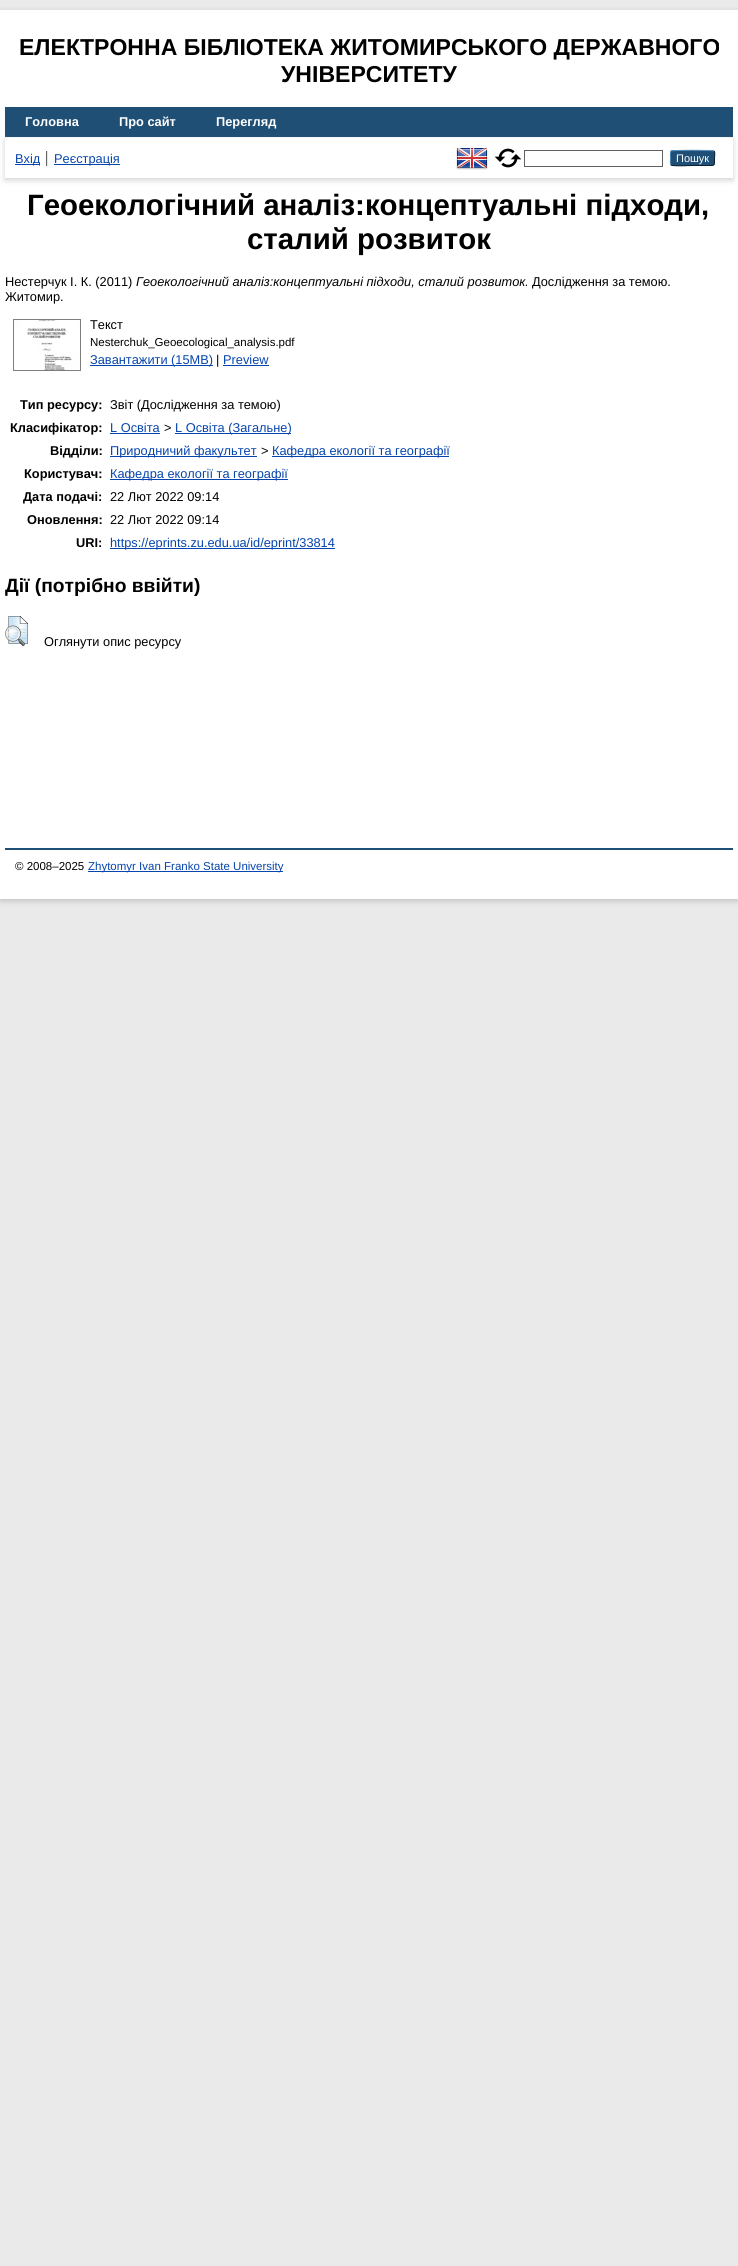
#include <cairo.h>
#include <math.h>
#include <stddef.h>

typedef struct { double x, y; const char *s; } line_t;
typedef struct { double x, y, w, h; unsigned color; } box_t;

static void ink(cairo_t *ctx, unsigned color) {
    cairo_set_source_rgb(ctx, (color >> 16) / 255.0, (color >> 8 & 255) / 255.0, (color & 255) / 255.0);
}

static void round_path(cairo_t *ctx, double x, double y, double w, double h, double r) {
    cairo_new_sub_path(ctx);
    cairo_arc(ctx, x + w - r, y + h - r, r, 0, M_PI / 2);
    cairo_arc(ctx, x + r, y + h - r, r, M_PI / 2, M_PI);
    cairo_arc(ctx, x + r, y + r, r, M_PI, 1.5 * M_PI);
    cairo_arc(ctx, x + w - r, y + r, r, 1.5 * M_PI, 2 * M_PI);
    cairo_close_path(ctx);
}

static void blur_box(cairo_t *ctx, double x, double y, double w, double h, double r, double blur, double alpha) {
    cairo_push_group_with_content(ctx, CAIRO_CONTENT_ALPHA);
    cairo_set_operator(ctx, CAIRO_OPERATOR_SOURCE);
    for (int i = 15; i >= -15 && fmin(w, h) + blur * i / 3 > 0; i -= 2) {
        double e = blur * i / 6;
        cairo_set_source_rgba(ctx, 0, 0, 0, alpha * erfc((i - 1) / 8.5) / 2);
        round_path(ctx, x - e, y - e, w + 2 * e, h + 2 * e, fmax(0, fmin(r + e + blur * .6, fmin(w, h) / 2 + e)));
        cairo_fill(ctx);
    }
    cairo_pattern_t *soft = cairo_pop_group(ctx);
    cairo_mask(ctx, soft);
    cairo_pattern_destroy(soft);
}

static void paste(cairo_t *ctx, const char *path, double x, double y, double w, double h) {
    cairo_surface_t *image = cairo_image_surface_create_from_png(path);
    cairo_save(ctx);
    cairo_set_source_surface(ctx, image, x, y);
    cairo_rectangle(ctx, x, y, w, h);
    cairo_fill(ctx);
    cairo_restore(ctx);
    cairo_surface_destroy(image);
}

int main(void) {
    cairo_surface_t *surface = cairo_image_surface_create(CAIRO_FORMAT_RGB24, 738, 2266);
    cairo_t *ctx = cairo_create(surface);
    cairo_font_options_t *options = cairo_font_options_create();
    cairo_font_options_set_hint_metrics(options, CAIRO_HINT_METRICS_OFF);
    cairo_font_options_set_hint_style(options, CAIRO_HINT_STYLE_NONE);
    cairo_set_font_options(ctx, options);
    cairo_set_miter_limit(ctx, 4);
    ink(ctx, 0xEAEAEA);
    cairo_paint(ctx);
    ink(ctx, 0x646464);
    blur_box(ctx, 0, 12, 738, 889, 0, 3, 0.3);
    ink(ctx, 0xFFFFFF);
    cairo_rectangle(ctx, 0, 10, 738, 889);
    cairo_fill(ctx);
    cairo_select_font_face(ctx, "Liberation Sans", CAIRO_FONT_SLANT_NORMAL, CAIRO_FONT_WEIGHT_BOLD);
    cairo_set_font_size(ctx, 23.05);
    ink(ctx, 0x000000);
    cairo_move_to(ctx, 19, 55);
    cairo_show_text(ctx, "ЕЛЕКТРОННА БІБЛІОТЕКА ЖИТОМИРСЬКОГО ДЕРЖАВНОГО");
    cairo_move_to(ctx, 281, 82);
    cairo_show_text(ctx, "УНІВЕРСИТЕТУ");
    ink(ctx, 0x204F76);
    cairo_rectangle(ctx, 5, 107, 728, 30);
    cairo_fill(ctx);
    cairo_set_font_size(ctx, 12.8);
    ink(ctx, 0xFFFFFF);
    {
        static const line_t items[] = {
            {25, 126, "Головна"},
            {119, 126, "Про сайт"},
            {216, 126, "Перегляд"},
        };
        for (size_t i = 0; i < sizeof items / sizeof *items; i++) {
            cairo_move_to(ctx, items[i].x, items[i].y);
            cairo_show_text(ctx, items[i].s);
        }
    }
    ink(ctx, 0x646464);
    blur_box(ctx, 5, 140, 728, 40, 0, 3, 0.3);
    {
        static const box_t items[] = {
            {5, 138, 728, 40, 0xFFFFFF},
            {46, 151, 1, 15, 0x606060},
            {15, 164, 25, 1, 0x0645AD},
        };
        for (size_t i = 0; i < sizeof items / sizeof *items; i++) {
            ink(ctx, items[i].color);
            cairo_rectangle(ctx, items[i].x, items[i].y, items[i].w, items[i].h);
            cairo_fill(ctx);
        }
    }
    cairo_select_font_face(ctx, "Liberation Sans", CAIRO_FONT_SLANT_NORMAL, CAIRO_FONT_WEIGHT_NORMAL);
    cairo_move_to(ctx, 15, 163);
    cairo_show_text(ctx, "Вхід");
    ink(ctx, 0xE8E8E8);
    cairo_rectangle(ctx, 47, 151, 1, 15);
    cairo_fill(ctx);
    ink(ctx, 0x0645AD);
    cairo_rectangle(ctx, 54, 164, 66, 1);
    cairo_fill(ctx);
    cairo_move_to(ctx, 54, 163);
    cairo_show_text(ctx, "Реєстрація");
    paste(ctx, "media/1.png", 456, 148, 32, 22);
    paste(ctx, "media/2.png", 494, 148, 28, 20);
    cairo_rectangle(ctx, 524.5, 150.5, 138, 16);
    ink(ctx, 0x606060);
    cairo_set_line_width(ctx, 1);
    cairo_stroke(ctx);
    ink(ctx, 0x1F4F76);
    round_path(ctx, 670, 150, 45, 16, 3);
    cairo_fill(ctx);
    cairo_new_path(ctx);
    cairo_move_to(ctx, 671, 151);
    cairo_curve_to(ctx, 672.5, 150, 712.5, 150, 714, 151);
    ink(ctx, 0x5B97C7);
    cairo_stroke(ctx);
    cairo_new_path(ctx);
    cairo_move_to(ctx, 714, 151);
    cairo_curve_to(ctx, 715.5, 153, 714.5, 156, 714.5, 158);
    cairo_curve_to(ctx, 714.5, 166.5, 715, 165.5, 705.5, 165.5);
    cairo_line_to(ctx, 692.5, 165.5);
    cairo_curve_to(ctx, 689.5, 165.5, 673, 166.5, 671, 165);
    ink(ctx, 0x0D2131);
    cairo_stroke(ctx);
    cairo_new_path(ctx);
    cairo_move_to(ctx, 671, 165);
    cairo_curve_to(ctx, 670, 163.5, 670.5, 159.5, 670.5, 158);
    cairo_curve_to(ctx, 670.5, 156.5, 670, 152.5, 671, 151);
    ink(ctx, 0x5287B3);
    cairo_stroke(ctx);
    cairo_set_font_size(ctx, 11);
    ink(ctx, 0xFFFFFF);
    cairo_move_to(ctx, 676, 162);
    cairo_show_text(ctx, "Пошук");
    cairo_select_font_face(ctx, "Liberation Sans", CAIRO_FONT_SLANT_NORMAL, CAIRO_FONT_WEIGHT_BOLD);
    cairo_set_font_size(ctx, 29.4);
    ink(ctx, 0x000000);
    cairo_move_to(ctx, 27, 215);
    cairo_show_text(ctx, "Геоекологічний аналіз:концептуальні підходи,");
    cairo_move_to(ctx, 247, 249);
    cairo_show_text(ctx, "сталий розвиток");
    cairo_select_font_face(ctx, "Liberation Sans", CAIRO_FONT_SLANT_NORMAL, CAIRO_FONT_WEIGHT_NORMAL);
    cairo_set_font_size(ctx, 12.8);
    cairo_move_to(ctx, 5, 286);
    cairo_show_text(ctx, "Нестерчук І. К. (2011)");
    cairo_select_font_face(ctx, "Liberation Sans", CAIRO_FONT_SLANT_ITALIC, CAIRO_FONT_WEIGHT_NORMAL);
    cairo_move_to(ctx, 136, 286);
    cairo_show_text(ctx, "Геоекологічний аналіз:концептуальні підходи, сталий розвиток.");
    cairo_select_font_face(ctx, "Liberation Sans", CAIRO_FONT_SLANT_NORMAL, CAIRO_FONT_WEIGHT_NORMAL);
    cairo_move_to(ctx, 532, 286);
    cairo_show_text(ctx, "Дослідження за темою.");
    cairo_move_to(ctx, 5, 301);
    cairo_show_text(ctx, "Житомир.");
    paste(ctx, "media/3.png", 13, 319, 68, 52);
    cairo_move_to(ctx, 90, 329);
    cairo_show_text(ctx, "Текст");
    cairo_set_font_size(ctx, 11.5);
    cairo_move_to(ctx, 90, 346);
    cairo_show_text(ctx, "Nesterchuk_Geoecological_analysis.pdf");
    ink(ctx, 0x0645AD);
    cairo_rectangle(ctx, 90, 365, 123, 1);
    cairo_fill(ctx);
    cairo_set_font_size(ctx, 12.8);
    cairo_move_to(ctx, 90, 364);
    cairo_show_text(ctx, "Завантажити (15MB)");
    ink(ctx, 0x000000);
    cairo_move_to(ctx, 216, 364);
    cairo_show_text(ctx, "|");
    ink(ctx, 0x0645AD);
    cairo_move_to(ctx, 223, 364);
    cairo_show_text(ctx, "Preview");
    cairo_rectangle(ctx, 223, 365, 46, 1);
    cairo_fill(ctx);
    cairo_select_font_face(ctx, "Liberation Sans", CAIRO_FONT_SLANT_NORMAL, CAIRO_FONT_WEIGHT_BOLD);
    ink(ctx, 0x000000);
    cairo_move_to(ctx, 20, 409);
    cairo_show_text(ctx, "Тип ресурсу:");
    cairo_select_font_face(ctx, "Liberation Sans", CAIRO_FONT_SLANT_NORMAL, CAIRO_FONT_WEIGHT_NORMAL);
    cairo_move_to(ctx, 110, 409);
    cairo_show_text(ctx, "Звіт (Дослідження за темою)");
    cairo_select_font_face(ctx, "Liberation Sans", CAIRO_FONT_SLANT_NORMAL, CAIRO_FONT_WEIGHT_BOLD);
    cairo_move_to(ctx, 10, 432);
    cairo_show_text(ctx, "Класифікатор:");
    cairo_select_font_face(ctx, "Liberation Sans", CAIRO_FONT_SLANT_NORMAL, CAIRO_FONT_WEIGHT_NORMAL);
    ink(ctx, 0x0645AD);
    cairo_move_to(ctx, 110, 432);
    cairo_show_text(ctx, "L Освіта");
    cairo_rectangle(ctx, 110, 433, 50, 1);
    cairo_fill(ctx);
    ink(ctx, 0x000000);
    cairo_move_to(ctx, 164, 432);
    cairo_show_text(ctx, ">");
    ink(ctx, 0x0645AD);
    cairo_rectangle(ctx, 175, 433, 116, 1);
    cairo_fill(ctx);
    cairo_move_to(ctx, 175, 432);
    cairo_show_text(ctx, "L Освіта (Загальне)");
    cairo_select_font_face(ctx, "Liberation Sans", CAIRO_FONT_SLANT_NORMAL, CAIRO_FONT_WEIGHT_BOLD);
    ink(ctx, 0x000000);
    cairo_move_to(ctx, 50, 455);
    cairo_show_text(ctx, "Відділи:");
    ink(ctx, 0x0645AD);
    cairo_rectangle(ctx, 110, 456, 147, 1);
    cairo_fill(ctx);
    cairo_select_font_face(ctx, "Liberation Sans", CAIRO_FONT_SLANT_NORMAL, CAIRO_FONT_WEIGHT_NORMAL);
    cairo_move_to(ctx, 110, 455);
    cairo_show_text(ctx, "Природничий факультет");
    ink(ctx, 0x000000);
    cairo_move_to(ctx, 261, 455);
    cairo_show_text(ctx, ">");
    ink(ctx, 0x0645AD);
    cairo_rectangle(ctx, 272, 456, 177, 1);
    cairo_fill(ctx);
    cairo_move_to(ctx, 272, 455);
    cairo_show_text(ctx, "Кафедра екології та географії");
    cairo_select_font_face(ctx, "Liberation Sans", CAIRO_FONT_SLANT_NORMAL, CAIRO_FONT_WEIGHT_BOLD);
    ink(ctx, 0x000000);
    cairo_move_to(ctx, 24, 478);
    cairo_show_text(ctx, "Користувач:");
    ink(ctx, 0x0645AD);
    cairo_rectangle(ctx, 110, 479, 178, 1);
    cairo_fill(ctx);
    cairo_select_font_face(ctx, "Liberation Sans", CAIRO_FONT_SLANT_NORMAL, CAIRO_FONT_WEIGHT_NORMAL);
    cairo_move_to(ctx, 110, 478);
    cairo_show_text(ctx, "Кафедра екології та географії");
    cairo_select_font_face(ctx, "Liberation Sans", CAIRO_FONT_SLANT_NORMAL, CAIRO_FONT_WEIGHT_BOLD);
    ink(ctx, 0x000000);
    cairo_move_to(ctx, 23, 501);
    cairo_show_text(ctx, "Дата подачі:");
    cairo_select_font_face(ctx, "Liberation Sans", CAIRO_FONT_SLANT_NORMAL, CAIRO_FONT_WEIGHT_NORMAL);
    cairo_move_to(ctx, 110, 501);
    cairo_show_text(ctx, "22 Лют 2022 09:14");
    cairo_select_font_face(ctx, "Liberation Sans", CAIRO_FONT_SLANT_NORMAL, CAIRO_FONT_WEIGHT_BOLD);
    cairo_move_to(ctx, 27, 524);
    cairo_show_text(ctx, "Оновлення:");
    cairo_select_font_face(ctx, "Liberation Sans", CAIRO_FONT_SLANT_NORMAL, CAIRO_FONT_WEIGHT_NORMAL);
    cairo_move_to(ctx, 110, 524);
    cairo_show_text(ctx, "22 Лют 2022 09:14");
    cairo_select_font_face(ctx, "Liberation Sans", CAIRO_FONT_SLANT_NORMAL, CAIRO_FONT_WEIGHT_BOLD);
    cairo_move_to(ctx, 76, 547);
    cairo_show_text(ctx, "URI:");
    ink(ctx, 0x0645AD);
    cairo_rectangle(ctx, 110, 548, 225, 1);
    cairo_fill(ctx);
    cairo_select_font_face(ctx, "Liberation Sans", CAIRO_FONT_SLANT_NORMAL, CAIRO_FONT_WEIGHT_NORMAL);
    cairo_move_to(ctx, 110, 547);
    cairo_show_text(ctx, "https://eprints.zu.edu.ua/id/eprint/33814");
    cairo_select_font_face(ctx, "Liberation Sans", CAIRO_FONT_SLANT_NORMAL, CAIRO_FONT_WEIGHT_BOLD);
    cairo_set_font_size(ctx, 19.25);
    ink(ctx, 0x000000);
    cairo_move_to(ctx, 5, 592);
    cairo_show_text(ctx, "Дії (потрібно ввійти)");
    paste(ctx, "media/4.png", 5, 616, 23, 30);
    cairo_select_font_face(ctx, "Liberation Sans", CAIRO_FONT_SLANT_NORMAL, CAIRO_FONT_WEIGHT_NORMAL);
    cairo_set_font_size(ctx, 12.8);
    cairo_move_to(ctx, 44, 646);
    cairo_show_text(ctx, "Оглянути опис ресурсу");
    ink(ctx, 0x204F76);
    cairo_rectangle(ctx, 5, 848, 728, 2);
    cairo_fill(ctx);
    cairo_set_font_size(ctx, 11.5);
    ink(ctx, 0x000000);
    cairo_move_to(ctx, 15, 870);
    cairo_show_text(ctx, "© 2008–2025");
    ink(ctx, 0x0645AD);
    cairo_rectangle(ctx, 88, 871, 195, 1);
    cairo_fill(ctx);
    cairo_move_to(ctx, 88, 870);
    cairo_show_text(ctx, "Zhytomyr Ivan Franko State University");
    cairo_surface_write_to_png(surface, "image.png");
    cairo_font_options_destroy(options);
    cairo_destroy(ctx);
    cairo_surface_destroy(surface);
    return 0;
}
